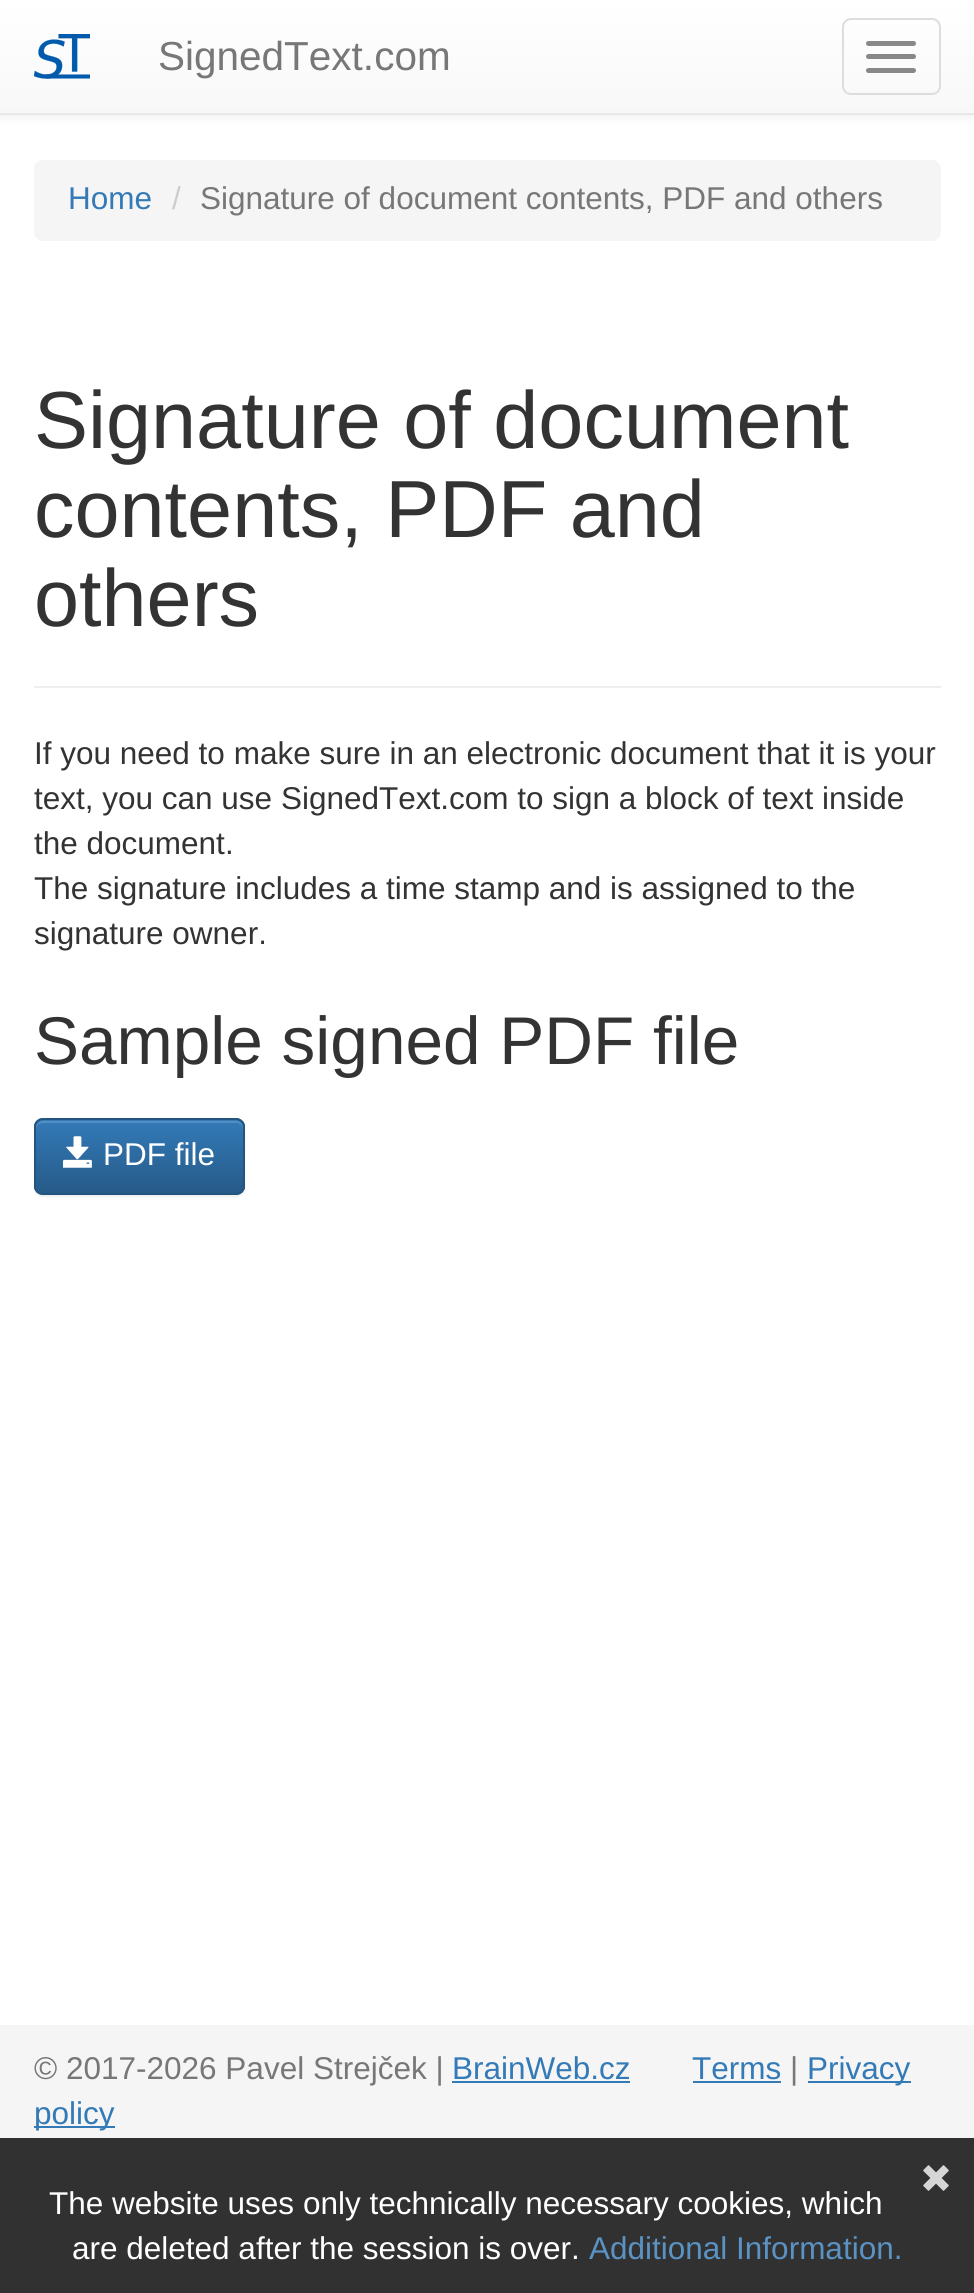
#include <cairo.h>
#include <math.h>
#include <stddef.h>

typedef struct { double x, y; const char *s; } line_t;

static void ink(cairo_t *ctx, unsigned color) {
    cairo_set_source_rgb(ctx, (color >> 16) / 255.0, (color >> 8 & 255) / 255.0, (color & 255) / 255.0);
}

static void round_path(cairo_t *ctx, double x, double y, double w, double h, double r) {
    cairo_new_sub_path(ctx);
    cairo_arc(ctx, x + w - r, y + h - r, r, 0, M_PI / 2);
    cairo_arc(ctx, x + r, y + h - r, r, M_PI / 2, M_PI);
    cairo_arc(ctx, x + r, y + r, r, M_PI, 1.5 * M_PI);
    cairo_arc(ctx, x + w - r, y + r, r, 1.5 * M_PI, 2 * M_PI);
    cairo_close_path(ctx);
}

static void blur_box(cairo_t *ctx, double x, double y, double w, double h, double r, double blur, double alpha) {
    cairo_push_group_with_content(ctx, CAIRO_CONTENT_ALPHA);
    cairo_set_operator(ctx, CAIRO_OPERATOR_SOURCE);
    for (int i = 15; i >= -15 && fmin(w, h) + blur * i / 3 > 0; i -= 2) {
        double e = blur * i / 6;
        cairo_set_source_rgba(ctx, 0, 0, 0, alpha * erfc((i - 1) / 8.5) / 2);
        round_path(ctx, x - e, y - e, w + 2 * e, h + 2 * e, fmax(0, fmin(r + e + blur * .6, fmin(w, h) / 2 + e)));
        cairo_fill(ctx);
    }
    cairo_pattern_t *soft = cairo_pop_group(ctx);
    cairo_mask(ctx, soft);
    cairo_pattern_destroy(soft);
}

static void paste(cairo_t *ctx, const char *path, double x, double y, double w, double h) {
    cairo_surface_t *image = cairo_image_surface_create_from_png(path);
    cairo_save(ctx);
    cairo_set_source_surface(ctx, image, x, y);
    cairo_rectangle(ctx, x, y, w, h);
    cairo_fill(ctx);
    cairo_restore(ctx);
    cairo_surface_destroy(image);
}

int main(void) {
    cairo_surface_t *surface = cairo_image_surface_create(CAIRO_FORMAT_RGB24, 974, 2293);
    cairo_t *ctx = cairo_create(surface);
    cairo_font_options_t *options = cairo_font_options_create();
    cairo_font_options_set_hint_metrics(options, CAIRO_HINT_METRICS_OFF);
    cairo_font_options_set_hint_style(options, CAIRO_HINT_STYLE_NONE);
    cairo_set_font_options(ctx, options);
    cairo_set_miter_limit(ctx, 4);
    cairo_pattern_t *gradient;
    ink(ctx, 0xFFFFFF);
    cairo_paint(ctx);
    ink(ctx, 0x000000);
    blur_box(ctx, 0, 2, 974, 115, 0, 5.5, 0.07);
    gradient = cairo_pattern_create_linear(487, 0, 487, 113);
    cairo_pattern_add_color_stop_rgba(gradient, 0, 1, 1, 1, 1);
    cairo_pattern_add_color_stop_rgba(gradient, 1, 0.973, 0.973, 0.973, 1);
    cairo_set_source(ctx, gradient);
    cairo_pattern_destroy(gradient);
    cairo_rectangle(ctx, 0, 0, 974, 113);
    cairo_fill(ctx);
    ink(ctx, 0xE7E7E7);
    cairo_rectangle(ctx, 0, 113, 974, 2);
    cairo_fill(ctx);
    paste(ctx, "media/1.png", 34, 34, 56, 45);
    cairo_select_font_face(ctx, "Liberation Sans", CAIRO_FONT_SLANT_NORMAL, CAIRO_FONT_WEIGHT_NORMAL);
    cairo_set_font_size(ctx, 40.5);
    ink(ctx, 0x777777);
    cairo_move_to(ctx, 158, 70);
    cairo_show_text(ctx, "SignedText.com");
    round_path(ctx, 843, 19, 97, 75, 8);
    ink(ctx, 0xDDDDDD);
    cairo_stroke(ctx);
    ink(ctx, 0x888888);
    round_path(ctx, 866, 41, 50, 5, 2.5);
    cairo_fill(ctx);
    round_path(ctx, 866, 54, 50, 5, 2.5);
    cairo_fill(ctx);
    round_path(ctx, 866, 68, 50, 5, 2.5);
    cairo_fill(ctx);
    ink(ctx, 0xF5F5F5);
    round_path(ctx, 34, 160, 907, 81, 9);
    cairo_fill(ctx);
    cairo_set_font_size(ctx, 31.5);
    ink(ctx, 0x337AB7);
    cairo_move_to(ctx, 68, 209);
    cairo_show_text(ctx, "Home");
    ink(ctx, 0xCCCCCC);
    cairo_move_to(ctx, 172, 209);
    cairo_show_text(ctx, "/");
    ink(ctx, 0x777777);
    cairo_move_to(ctx, 200, 209);
    cairo_show_text(ctx, "Signature of document contents, PDF and others");
    ink(ctx, 0xEEEEEE);
    cairo_rectangle(ctx, 34, 686, 907, 2);
    cairo_fill(ctx);
    cairo_set_font_size(ctx, 81);
    ink(ctx, 0x333333);
    {
        static const line_t items[] = {
            {34, 448, "Signature of document"},
            {34, 537, "contents, PDF and"},
            {34, 626, "others"},
        };
        for (size_t i = 0; i < sizeof items / sizeof *items; i++) {
            cairo_move_to(ctx, items[i].x, items[i].y);
            cairo_show_text(ctx, items[i].s);
        }
    }
    cairo_set_font_size(ctx, 31.5);
    {
        static const line_t items[] = {
            {34, 764, "If you need to make sure in an electronic document that it is your"},
            {34, 809, "text, you can use SignedText.com to sign a block of text inside"},
            {34, 854, "the document."},
            {34, 899, "The signature includes a time stamp and is assigned to the"},
            {34, 944, "signature owner."},
        };
        for (size_t i = 0; i < sizeof items / sizeof *items; i++) {
            cairo_move_to(ctx, items[i].x, items[i].y);
            cairo_show_text(ctx, items[i].s);
        }
    }
    cairo_set_font_size(ctx, 67.5);
    cairo_move_to(ctx, 34, 1064);
    cairo_show_text(ctx, "Sample signed PDF file");
    ink(ctx, 0x000000);
    blur_box(ctx, 34, 1121, 211, 76, 9, 1, 0.07);
    ink(ctx, 0x337AB7);
    round_path(ctx, 34, 1118, 211, 77, 9);
    cairo_fill(ctx);
    cairo_save(ctx);
    round_path(ctx, 34, 1118, 211, 77, 9);
    cairo_clip(ctx);
    gradient = cairo_pattern_create_linear(140, 1121, 140, 1193);
    cairo_pattern_add_color_stop_rgba(gradient, 0, 0.2, 0.478, 0.718, 1);
    cairo_pattern_add_color_stop_rgba(gradient, 1, 0.149, 0.353, 0.533, 1);
    cairo_set_source(ctx, gradient);
    cairo_pattern_destroy(gradient);
    cairo_rectangle(ctx, 34, 1121, 211, 72);
    cairo_fill(ctx);
    cairo_restore(ctx);
    cairo_set_source_rgba(ctx, 1, 1, 1, 0.15);
    cairo_new_path(ctx);
    cairo_move_to(ctx, 43, 1123);
    cairo_line_to(ctx, 236, 1123);
    cairo_curve_to(ctx, 240, 1123, 243, 1126, 243, 1130);
    cairo_line_to(ctx, 243, 1128);
    cairo_curve_to(ctx, 243, 1124, 240, 1121, 236, 1121);
    cairo_line_to(ctx, 43, 1121);
    cairo_curve_to(ctx, 39, 1121, 36, 1124, 36, 1128);
    cairo_line_to(ctx, 36, 1130);
    cairo_curve_to(ctx, 36, 1126, 39, 1123, 43, 1123);
    cairo_close_path(ctx);
    cairo_fill(ctx);
    round_path(ctx, 35, 1119, 209, 75, 8);
    ink(ctx, 0x245580);
    cairo_stroke(ctx);
    paste(ctx, "media/2.png", 63, 1136, 29, 32);
    cairo_set_font_size(ctx, 31.5);
    ink(ctx, 0xFFFFFF);
    cairo_move_to(ctx, 103, 1165);
    cairo_show_text(ctx, "PDF file");
    ink(ctx, 0xF5F5F5);
    cairo_rectangle(ctx, 0, 2025, 974, 113);
    cairo_fill(ctx);
    ink(ctx, 0x777777);
    cairo_move_to(ctx, 34, 2079);
    cairo_show_text(ctx, "© 2017-2026 Pavel Strejček |");
    ink(ctx, 0x337AB7);
    cairo_move_to(ctx, 452, 2079);
    cairo_show_text(ctx, "BrainWeb.cz");
    cairo_rectangle(ctx, 452, 2081, 178, 2);
    cairo_fill(ctx);
    cairo_move_to(ctx, 692, 2079);
    cairo_show_text(ctx, "Terms");
    cairo_rectangle(ctx, 693, 2081, 88, 2);
    cairo_fill(ctx);
    ink(ctx, 0x777777);
    cairo_move_to(ctx, 790, 2079);
    cairo_show_text(ctx, "|");
    ink(ctx, 0x337AB7);
    cairo_rectangle(ctx, 808, 2081, 103, 2);
    cairo_fill(ctx);
    cairo_move_to(ctx, 807, 2079);
    cairo_show_text(ctx, "Privacy");
    cairo_rectangle(ctx, 34, 2126, 81, 2);
    cairo_fill(ctx);
    cairo_move_to(ctx, 34, 2124);
    cairo_show_text(ctx, "policy");
    ink(ctx, 0x313131);
    cairo_rectangle(ctx, 0, 2138, 974, 155);
    cairo_fill(ctx);
    paste(ctx, "media/3.png", 923, 2165, 26, 26);
    ink(ctx, 0xFFFFFF);
    cairo_move_to(ctx, 49, 2214);
    cairo_show_text(ctx, "The website uses only technically necessary cookies, which");
    cairo_move_to(ctx, 72, 2259);
    cairo_show_text(ctx, "are deleted after the session is over.");
    ink(ctx, 0x5A93C3);
    cairo_move_to(ctx, 589, 2259);
    cairo_show_text(ctx, "Additional Information.");
    cairo_surface_write_to_png(surface, "image.png");
    cairo_font_options_destroy(options);
    cairo_destroy(ctx);
    cairo_surface_destroy(surface);
    return 0;
}
